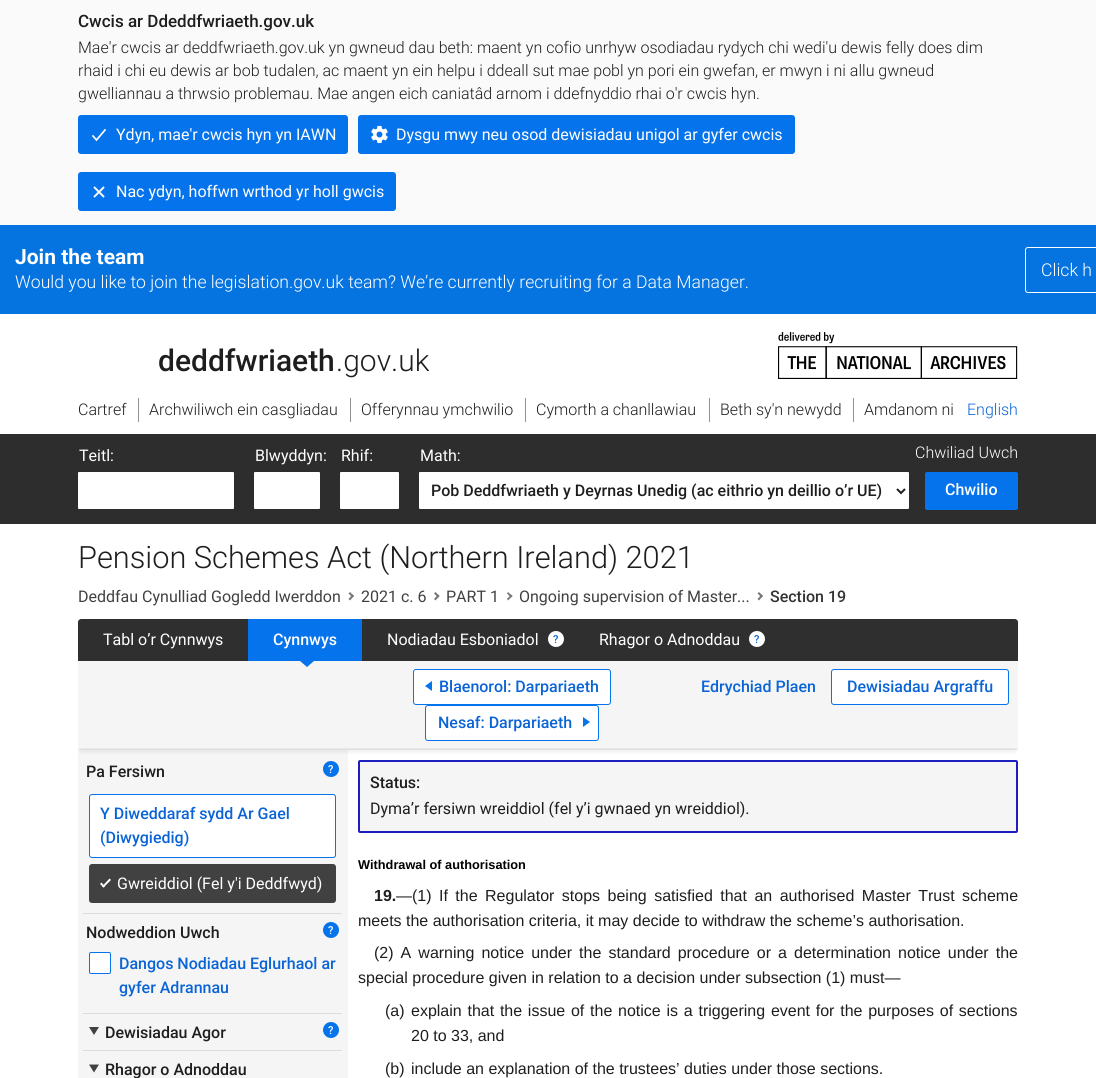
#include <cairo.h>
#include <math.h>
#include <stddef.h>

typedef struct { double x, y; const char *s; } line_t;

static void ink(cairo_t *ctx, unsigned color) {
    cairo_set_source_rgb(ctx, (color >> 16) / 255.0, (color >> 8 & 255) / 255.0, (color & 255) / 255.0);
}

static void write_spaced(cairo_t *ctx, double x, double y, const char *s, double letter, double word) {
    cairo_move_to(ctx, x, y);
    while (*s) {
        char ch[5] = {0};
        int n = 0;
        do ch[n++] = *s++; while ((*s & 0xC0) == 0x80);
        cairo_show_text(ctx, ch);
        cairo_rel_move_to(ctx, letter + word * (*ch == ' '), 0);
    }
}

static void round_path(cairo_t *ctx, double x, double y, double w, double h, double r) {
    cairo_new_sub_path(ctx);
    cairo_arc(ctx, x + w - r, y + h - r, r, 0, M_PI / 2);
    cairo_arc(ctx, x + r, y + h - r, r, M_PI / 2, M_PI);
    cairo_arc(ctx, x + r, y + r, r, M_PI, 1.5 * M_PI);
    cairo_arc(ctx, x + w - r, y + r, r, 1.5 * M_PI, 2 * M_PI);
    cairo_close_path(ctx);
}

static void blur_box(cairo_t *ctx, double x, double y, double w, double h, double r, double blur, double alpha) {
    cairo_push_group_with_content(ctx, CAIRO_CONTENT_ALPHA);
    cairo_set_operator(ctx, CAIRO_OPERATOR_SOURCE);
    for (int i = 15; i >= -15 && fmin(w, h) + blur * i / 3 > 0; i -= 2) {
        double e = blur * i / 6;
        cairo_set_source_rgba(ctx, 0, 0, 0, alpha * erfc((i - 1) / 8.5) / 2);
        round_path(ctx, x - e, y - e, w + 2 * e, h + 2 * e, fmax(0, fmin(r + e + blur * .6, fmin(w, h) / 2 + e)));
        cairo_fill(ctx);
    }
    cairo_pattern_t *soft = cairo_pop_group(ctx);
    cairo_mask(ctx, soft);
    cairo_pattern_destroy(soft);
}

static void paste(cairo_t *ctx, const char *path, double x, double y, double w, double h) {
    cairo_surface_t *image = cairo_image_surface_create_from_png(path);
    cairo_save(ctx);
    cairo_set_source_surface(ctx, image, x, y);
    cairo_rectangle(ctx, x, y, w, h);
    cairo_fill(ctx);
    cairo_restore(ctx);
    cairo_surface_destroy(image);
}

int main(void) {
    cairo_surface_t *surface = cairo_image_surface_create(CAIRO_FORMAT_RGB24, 1096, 1078);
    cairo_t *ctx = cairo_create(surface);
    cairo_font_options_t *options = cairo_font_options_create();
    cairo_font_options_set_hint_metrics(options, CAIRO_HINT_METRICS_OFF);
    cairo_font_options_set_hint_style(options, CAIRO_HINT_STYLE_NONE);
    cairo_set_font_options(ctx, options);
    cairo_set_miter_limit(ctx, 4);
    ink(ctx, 0xFFFFFF);
    cairo_paint(ctx);
    ink(ctx, 0xFAFAFA);
    cairo_rectangle(ctx, 0, 0, 1096, 225);
    cairo_fill(ctx);
    cairo_select_font_face(ctx, "Roboto Medium", CAIRO_FONT_SLANT_NORMAL, CAIRO_FONT_WEIGHT_NORMAL);
    cairo_set_font_size(ctx, 17);
    ink(ctx, 0x1E1E1E);
    cairo_move_to(ctx, 78, 27);
    cairo_show_text(ctx, "Cwcis ar Ddeddfwriaeth.gov.uk");
    cairo_select_font_face(ctx, "Roboto Light", CAIRO_FONT_SLANT_NORMAL, CAIRO_FONT_WEIGHT_NORMAL);
    cairo_set_font_size(ctx, 16);
    {
        static const line_t items[] = {
            {78, 53, "Mae'r cwcis ar deddfwriaeth.gov.uk yn gwneud dau beth: maent yn cofio unrhyw osodiadau rydych chi wedi'u dewis felly does dim"},
            {78, 76, "rhaid i chi eu dewis ar bob tudalen, ac maent yn ein helpu i ddeall sut mae pobl yn pori ein gwefan, er mwyn i ni allu gwneud"},
            {78, 99, "gwelliannau a thrwsio problemau. Mae angen eich caniatâd arnom i ddefnyddio rhai o'r cwcis hyn."},
        };
        for (size_t i = 0; i < sizeof items / sizeof *items; i++) {
            cairo_move_to(ctx, items[i].x, items[i].y);
            cairo_show_text(ctx, items[i].s);
        }
    }
    ink(ctx, 0x0573EB);
    round_path(ctx, 78, 115, 270, 39, 3);
    cairo_fill(ctx);
    cairo_new_path(ctx);
    cairo_move_to(ctx, 105, 130);
    cairo_line_to(ctx, 96.5, 140);
    cairo_line_to(ctx, 93, 136);
    ink(ctx, 0xFFFFFF);
    cairo_set_line_width(ctx, 1.7);
    cairo_set_line_cap(ctx, CAIRO_LINE_CAP_SQUARE);
    cairo_stroke(ctx);
    cairo_select_font_face(ctx, "Roboto", CAIRO_FONT_SLANT_NORMAL, CAIRO_FONT_WEIGHT_NORMAL);
    cairo_move_to(ctx, 116, 140);
    cairo_show_text(ctx, "Ydyn, mae'r cwcis hyn yn IAWN");
    ink(ctx, 0x0573EB);
    round_path(ctx, 358, 115, 437, 39, 3);
    cairo_fill(ctx);
    paste(ctx, "media/1.png", 371, 125, 17, 19);
    ink(ctx, 0xFFFFFF);
    cairo_move_to(ctx, 396, 140);
    cairo_show_text(ctx, "Dysgu mwy neu osod dewisiadau unigol ar gyfer cwcis");
    ink(ctx, 0x0573EB);
    round_path(ctx, 78, 172, 318, 39, 3);
    cairo_fill(ctx);
    paste(ctx, "media/2.png", 93, 186, 12, 12);
    ink(ctx, 0xFFFFFF);
    cairo_move_to(ctx, 116, 197);
    cairo_show_text(ctx, "Nac ydyn, hoffwn wrthod yr holl gwcis");
    ink(ctx, 0x0574E0);
    cairo_rectangle(ctx, 0, 225, 1096, 89);
    cairo_fill(ctx);
    cairo_select_font_face(ctx, "Roboto", CAIRO_FONT_SLANT_NORMAL, CAIRO_FONT_WEIGHT_BOLD);
    cairo_set_font_size(ctx, 21);
    ink(ctx, 0xFFFFFF);
    cairo_move_to(ctx, 15, 264);
    cairo_show_text(ctx, "Join the team");
    cairo_select_font_face(ctx, "Roboto Light", CAIRO_FONT_SLANT_NORMAL, CAIRO_FONT_WEIGHT_NORMAL);
    cairo_set_font_size(ctx, 17.6);
    cairo_move_to(ctx, 15, 288);
    cairo_show_text(ctx, "Would you like to join the legislation.gov.uk team? We’re currently recruiting for a Data Manager.");
    round_path(ctx, 1025.5, 247.5, 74, 45, 2.5);
    cairo_set_line_width(ctx, 1);
    cairo_set_line_cap(ctx, CAIRO_LINE_CAP_BUTT);
    cairo_stroke(ctx);
    cairo_move_to(ctx, 1041, 276);
    cairo_show_text(ctx, "Click h");
    cairo_select_font_face(ctx, "Roboto Medium", CAIRO_FONT_SLANT_NORMAL, CAIRO_FONT_WEIGHT_NORMAL);
    cairo_set_font_size(ctx, 30);
    ink(ctx, 0x1E1E1E);
    cairo_move_to(ctx, 158, 371);
    cairo_show_text(ctx, "deddfwriaeth");
    cairo_select_font_face(ctx, "Roboto Light", CAIRO_FONT_SLANT_NORMAL, CAIRO_FONT_WEIGHT_NORMAL);
    cairo_move_to(ctx, 336, 371);
    cairo_show_text(ctx, ".gov.uk");
    paste(ctx, "media/3.png", 778, 332, 240, 47);
    cairo_set_font_size(ctx, 16);
    ink(ctx, 0x0A64D7);
    cairo_move_to(ctx, 967, 415);
    cairo_show_text(ctx, "English");
    ink(ctx, 0x2D2D2D);
    cairo_rectangle(ctx, 0, 434, 1096, 90);
    cairo_fill(ctx);
    ink(ctx, 0x1E1E1E);
    cairo_move_to(ctx, 78, 415);
    cairo_show_text(ctx, "Cartref");
    ink(ctx, 0x919191);
    cairo_rectangle(ctx, 138, 398, 1, 24);
    cairo_fill(ctx);
    ink(ctx, 0x1E1E1E);
    cairo_move_to(ctx, 149, 415);
    cairo_show_text(ctx, "Archwiliwch ein casgliadau");
    ink(ctx, 0x919191);
    cairo_rectangle(ctx, 350, 398, 1, 24);
    cairo_fill(ctx);
    ink(ctx, 0x1E1E1E);
    cairo_move_to(ctx, 361, 415);
    cairo_show_text(ctx, "Offerynnau ymchwilio");
    ink(ctx, 0x919191);
    cairo_rectangle(ctx, 525, 398, 1, 24);
    cairo_fill(ctx);
    ink(ctx, 0x1E1E1E);
    cairo_move_to(ctx, 536, 415);
    cairo_show_text(ctx, "Cymorth a chanllawiau");
    ink(ctx, 0x919191);
    cairo_rectangle(ctx, 709, 398, 1, 24);
    cairo_fill(ctx);
    ink(ctx, 0x1E1E1E);
    cairo_move_to(ctx, 720, 415);
    cairo_show_text(ctx, "Beth sy'n newydd");
    ink(ctx, 0x919191);
    cairo_rectangle(ctx, 853, 398, 1, 24);
    cairo_fill(ctx);
    ink(ctx, 0x1E1E1E);
    cairo_move_to(ctx, 864, 415);
    cairo_show_text(ctx, "Amdanom ni");
    cairo_select_font_face(ctx, "Roboto", CAIRO_FONT_SLANT_NORMAL, CAIRO_FONT_WEIGHT_NORMAL);
    ink(ctx, 0xFFFFFF);
    cairo_move_to(ctx, 79, 461);
    cairo_show_text(ctx, "Teitl:");
    round_path(ctx, 78, 472, 156, 37, 1);
    cairo_fill(ctx);
    cairo_move_to(ctx, 255, 461);
    cairo_show_text(ctx, "Blwyddyn:");
    round_path(ctx, 254, 472, 66, 37, 1);
    cairo_fill(ctx);
    cairo_move_to(ctx, 341, 461);
    cairo_show_text(ctx, "Rhif:");
    round_path(ctx, 340, 472, 59, 37, 1);
    cairo_fill(ctx);
    cairo_move_to(ctx, 420, 461);
    cairo_show_text(ctx, "Math:");
    round_path(ctx, 419, 472, 490, 37, 1);
    cairo_fill(ctx);
    cairo_new_path(ctx);
    cairo_move_to(ctx, 897, 489);
    cairo_line_to(ctx, 901, 493);
    cairo_line_to(ctx, 905, 489);
    ink(ctx, 0x1E1E1E);
    cairo_set_line_width(ctx, 2);
    cairo_stroke(ctx);
    cairo_select_font_face(ctx, "Roboto Medium", CAIRO_FONT_SLANT_NORMAL, CAIRO_FONT_WEIGHT_NORMAL);
    cairo_move_to(ctx, 431, 496);
    cairo_show_text(ctx, "Pob Deddfwriaeth y Deyrnas Unedig (ac eithrio yn deillio o’r UE)");
    cairo_select_font_face(ctx, "Roboto Light", CAIRO_FONT_SLANT_NORMAL, CAIRO_FONT_WEIGHT_NORMAL);
    ink(ctx, 0xFFFFFF);
    cairo_move_to(ctx, 915, 458);
    cairo_show_text(ctx, "Chwiliad Uwch");
    ink(ctx, 0x0573EB);
    round_path(ctx, 925, 472, 93, 38, 2);
    cairo_fill(ctx);
    cairo_select_font_face(ctx, "Roboto Medium", CAIRO_FONT_SLANT_NORMAL, CAIRO_FONT_WEIGHT_NORMAL);
    ink(ctx, 0xFFFFFF);
    cairo_move_to(ctx, 945, 495);
    cairo_show_text(ctx, "Chwilio");
    cairo_select_font_face(ctx, "Roboto Light", CAIRO_FONT_SLANT_NORMAL, CAIRO_FONT_WEIGHT_NORMAL);
    cairo_set_font_size(ctx, 30.75);
    ink(ctx, 0x1E1E1E);
    cairo_move_to(ctx, 78, 568);
    cairo_show_text(ctx, "Pension Schemes Act (Northern Ireland) 2021");
    cairo_select_font_face(ctx, "Roboto", CAIRO_FONT_SLANT_NORMAL, CAIRO_FONT_WEIGHT_NORMAL);
    cairo_set_font_size(ctx, 16);
    ink(ctx, 0x414141);
    cairo_move_to(ctx, 78, 602);
    cairo_show_text(ctx, "Deddfau Cynulliad Gogledd Iwerddon");
    ink(ctx, 0x787878);
    cairo_new_path(ctx);
    cairo_move_to(ctx, 350, 592);
    cairo_line_to(ctx, 354, 596);
    cairo_line_to(ctx, 352.5, 597.5);
    cairo_line_to(ctx, 348.5, 593.5);
    cairo_close_path(ctx);
    cairo_fill(ctx);
    cairo_new_path(ctx);
    cairo_move_to(ctx, 352.5, 594.5);
    cairo_line_to(ctx, 354, 596);
    cairo_line_to(ctx, 350, 600.5);
    cairo_line_to(ctx, 348.5, 599);
    cairo_close_path(ctx);
    cairo_fill(ctx);
    ink(ctx, 0x414141);
    cairo_move_to(ctx, 361, 602);
    cairo_show_text(ctx, "2021 c. 6");
    ink(ctx, 0x787878);
    cairo_new_path(ctx);
    cairo_move_to(ctx, 435.5, 592);
    cairo_line_to(ctx, 439.5, 596);
    cairo_line_to(ctx, 438, 597.5);
    cairo_line_to(ctx, 434, 593.5);
    cairo_close_path(ctx);
    cairo_fill(ctx);
    cairo_new_path(ctx);
    cairo_move_to(ctx, 438, 594.5);
    cairo_line_to(ctx, 439.5, 596);
    cairo_line_to(ctx, 435.5, 600.5);
    cairo_line_to(ctx, 434, 599);
    cairo_close_path(ctx);
    cairo_fill(ctx);
    ink(ctx, 0x414141);
    cairo_move_to(ctx, 446, 602);
    cairo_show_text(ctx, "PART 1");
    ink(ctx, 0x787878);
    cairo_new_path(ctx);
    cairo_move_to(ctx, 508, 592);
    cairo_line_to(ctx, 512.5, 596);
    cairo_line_to(ctx, 511, 597.5);
    cairo_line_to(ctx, 507, 593.5);
    cairo_close_path(ctx);
    cairo_fill(ctx);
    cairo_new_path(ctx);
    cairo_move_to(ctx, 511, 594.5);
    cairo_line_to(ctx, 512.5, 596);
    cairo_line_to(ctx, 508, 600.5);
    cairo_line_to(ctx, 507, 599);
    cairo_close_path(ctx);
    cairo_fill(ctx);
    ink(ctx, 0x414141);
    cairo_move_to(ctx, 519, 602);
    cairo_show_text(ctx, "Ongoing supervision of Master...");
    ink(ctx, 0x787878);
    cairo_new_path(ctx);
    cairo_move_to(ctx, 759, 592);
    cairo_line_to(ctx, 763, 596);
    cairo_line_to(ctx, 761.5, 597.5);
    cairo_line_to(ctx, 757.5, 593.5);
    cairo_close_path(ctx);
    cairo_fill(ctx);
    cairo_new_path(ctx);
    cairo_move_to(ctx, 761.5, 594.5);
    cairo_line_to(ctx, 763, 596);
    cairo_line_to(ctx, 759, 600.5);
    cairo_line_to(ctx, 757.5, 599);
    cairo_close_path(ctx);
    cairo_fill(ctx);
    cairo_select_font_face(ctx, "Roboto Medium", CAIRO_FONT_SLANT_NORMAL, CAIRO_FONT_WEIGHT_NORMAL);
    ink(ctx, 0x333333);
    cairo_move_to(ctx, 770, 602);
    cairo_show_text(ctx, "Section 19");
    ink(ctx, 0x2E2F2E);
    cairo_new_path(ctx);
    cairo_move_to(ctx, 81, 619);
    cairo_line_to(ctx, 1015, 619);
    cairo_curve_to(ctx, 1016.5, 619, 1018, 620.5, 1018, 622);
    cairo_line_to(ctx, 1018, 661);
    cairo_line_to(ctx, 78, 661);
    cairo_line_to(ctx, 78, 622);
    cairo_curve_to(ctx, 78, 620.5, 79.5, 619, 81, 619);
    cairo_close_path(ctx);
    cairo_fill(ctx);
    cairo_select_font_face(ctx, "Roboto", CAIRO_FONT_SLANT_NORMAL, CAIRO_FONT_WEIGHT_NORMAL);
    ink(ctx, 0xFFFFFF);
    cairo_move_to(ctx, 103, 645);
    cairo_show_text(ctx, "Tabl o’r Cynnwys");
    ink(ctx, 0x0573EB);
    cairo_rectangle(ctx, 248, 619, 114, 42);
    cairo_fill(ctx);
    cairo_select_font_face(ctx, "Roboto Medium", CAIRO_FONT_SLANT_NORMAL, CAIRO_FONT_WEIGHT_NORMAL);
    ink(ctx, 0xFFFFFF);
    cairo_move_to(ctx, 273, 645);
    cairo_show_text(ctx, "Cynnwys");
    ink(ctx, 0xF5F5F5);
    cairo_rectangle(ctx, 78, 661, 940, 88);
    cairo_fill(ctx);
    ink(ctx, 0x0573EB);
    cairo_new_path(ctx);
    cairo_move_to(ctx, 300, 661);
    cairo_line_to(ctx, 314, 661);
    cairo_line_to(ctx, 307, 667);
    cairo_close_path(ctx);
    cairo_fill(ctx);
    cairo_select_font_face(ctx, "Roboto", CAIRO_FONT_SLANT_NORMAL, CAIRO_FONT_WEIGHT_NORMAL);
    ink(ctx, 0xFFFFFF);
    cairo_move_to(ctx, 387, 645);
    cairo_show_text(ctx, "Nodiadau Esboniadol");
    cairo_new_path(ctx);
    cairo_arc(ctx, 556, 639, 8, 0, 2 * M_PI);
    cairo_fill(ctx);
    cairo_select_font_face(ctx, "Roboto Medium", CAIRO_FONT_SLANT_NORMAL, CAIRO_FONT_WEIGHT_NORMAL);
    cairo_set_font_size(ctx, 11);
    ink(ctx, 0x0A64D7);
    cairo_move_to(ctx, 553, 643);
    cairo_show_text(ctx, "?");
    cairo_select_font_face(ctx, "Roboto", CAIRO_FONT_SLANT_NORMAL, CAIRO_FONT_WEIGHT_NORMAL);
    cairo_set_font_size(ctx, 16);
    ink(ctx, 0xFFFFFF);
    cairo_move_to(ctx, 599, 645);
    cairo_show_text(ctx, "Rhagor o Adnoddau");
    cairo_new_path(ctx);
    cairo_arc(ctx, 757, 639, 8, 0, 2 * M_PI);
    cairo_fill(ctx);
    cairo_select_font_face(ctx, "Roboto Medium", CAIRO_FONT_SLANT_NORMAL, CAIRO_FONT_WEIGHT_NORMAL);
    cairo_set_font_size(ctx, 11);
    ink(ctx, 0x0A64D7);
    cairo_move_to(ctx, 754, 643);
    cairo_show_text(ctx, "?");
    ink(ctx, 0xEBEBEB);
    cairo_rectangle(ctx, 78, 749, 940, 1);
    cairo_fill(ctx);
    ink(ctx, 0xFFFFFF);
    round_path(ctx, 413.5, 669.5, 197, 35, 2.5);
    cairo_fill_preserve(ctx);
    ink(ctx, 0x0573EB);
    cairo_set_line_width(ctx, 1);
    cairo_stroke(ctx);
    cairo_new_path(ctx);
    cairo_move_to(ctx, 432, 681);
    cairo_line_to(ctx, 432, 691);
    cairo_line_to(ctx, 425, 686);
    cairo_close_path(ctx);
    cairo_fill(ctx);
    cairo_set_font_size(ctx, 16);
    ink(ctx, 0x0A64D7);
    cairo_move_to(ctx, 439, 692);
    cairo_show_text(ctx, "Blaenorol: Darpariaeth");
    ink(ctx, 0xFFFFFF);
    round_path(ctx, 425.5, 705.5, 173, 35, 2.5);
    cairo_fill_preserve(ctx);
    ink(ctx, 0x0573EB);
    cairo_stroke(ctx);
    ink(ctx, 0x0A64D7);
    cairo_move_to(ctx, 438, 728);
    cairo_show_text(ctx, "Nesaf: Darpariaeth");
    ink(ctx, 0x0573EB);
    cairo_new_path(ctx);
    cairo_move_to(ctx, 583, 727);
    cairo_line_to(ctx, 583, 717);
    cairo_line_to(ctx, 590, 722);
    cairo_close_path(ctx);
    cairo_fill(ctx);
    ink(ctx, 0x0A64D7);
    cairo_move_to(ctx, 701, 692);
    cairo_show_text(ctx, "Edrychiad Plaen");
    ink(ctx, 0xFFFFFF);
    round_path(ctx, 831.5, 669.5, 177, 35, 2.5);
    cairo_fill_preserve(ctx);
    ink(ctx, 0x0573EB);
    cairo_stroke(ctx);
    ink(ctx, 0x0A64D7);
    cairo_move_to(ctx, 847, 692);
    cairo_show_text(ctx, "Dewisiadau Argraffu");
    ink(ctx, 0xF5F5F5);
    cairo_rectangle(ctx, 78, 750, 270, 328);
    cairo_fill(ctx);
    ink(ctx, 0xDCDCDC);
    cairo_rectangle(ctx, 83, 913, 259, 1);
    cairo_fill(ctx);
    ink(ctx, 0x1E1E1E);
    cairo_move_to(ctx, 86, 777);
    cairo_show_text(ctx, "Pa Fersiwn");
    ink(ctx, 0x0573EB);
    cairo_new_path(ctx);
    cairo_arc(ctx, 331, 769, 8, 0, 2 * M_PI);
    cairo_fill(ctx);
    cairo_set_font_size(ctx, 11);
    ink(ctx, 0xFFFFFF);
    cairo_move_to(ctx, 328, 773);
    cairo_show_text(ctx, "?");
    round_path(ctx, 89.5, 794.5, 246, 63, 2.5);
    cairo_fill_preserve(ctx);
    ink(ctx, 0x0573EB);
    cairo_stroke(ctx);
    cairo_set_font_size(ctx, 16);
    ink(ctx, 0x0A64D7);
    cairo_move_to(ctx, 100, 819);
    cairo_show_text(ctx, "Y Diweddaraf sydd Ar Gael");
    cairo_move_to(ctx, 100, 843);
    cairo_show_text(ctx, "(Diwygiedig)");
    ink(ctx, 0x414141);
    round_path(ctx, 89, 864, 247, 39, 3);
    cairo_fill(ctx);
    ink(ctx, 0xFFFFFF);
    cairo_new_path(ctx);
    cairo_move_to(ctx, 109.5, 878.5);
    cairo_line_to(ctx, 111, 880);
    cairo_line_to(ctx, 103.5, 887.5);
    cairo_line_to(ctx, 102, 886.5);
    cairo_close_path(ctx);
    cairo_fill(ctx);
    cairo_new_path(ctx);
    cairo_move_to(ctx, 101.5, 882.5);
    cairo_line_to(ctx, 105, 886.5);
    cairo_line_to(ctx, 103.5, 887.5);
    cairo_line_to(ctx, 100, 884);
    cairo_close_path(ctx);
    cairo_fill(ctx);
    cairo_select_font_face(ctx, "Roboto", CAIRO_FONT_SLANT_NORMAL, CAIRO_FONT_WEIGHT_NORMAL);
    cairo_move_to(ctx, 117, 889);
    cairo_show_text(ctx, "Gwreiddiol (Fel y'i Deddfwyd)");
    ink(ctx, 0xDCDCDC);
    cairo_rectangle(ctx, 83, 1013, 259, 1);
    cairo_fill(ctx);
    cairo_select_font_face(ctx, "Roboto Medium", CAIRO_FONT_SLANT_NORMAL, CAIRO_FONT_WEIGHT_NORMAL);
    ink(ctx, 0x1E1E1E);
    cairo_move_to(ctx, 86, 938);
    cairo_show_text(ctx, "Nodweddion Uwch");
    ink(ctx, 0x0573EB);
    cairo_new_path(ctx);
    cairo_arc(ctx, 331, 930, 8, 0, 2 * M_PI);
    cairo_fill(ctx);
    cairo_set_font_size(ctx, 11);
    ink(ctx, 0xFFFFFF);
    cairo_move_to(ctx, 328, 934);
    cairo_show_text(ctx, "?");
    round_path(ctx, 89.5, 952.5, 21, 21, 1.5);
    cairo_fill_preserve(ctx);
    ink(ctx, 0x0573EB);
    cairo_stroke(ctx);
    cairo_set_font_size(ctx, 16);
    ink(ctx, 0x0A64D7);
    cairo_move_to(ctx, 119, 969);
    cairo_show_text(ctx, "Dangos Nodiadau Eglurhaol ar");
    cairo_move_to(ctx, 119, 993);
    cairo_show_text(ctx, "gyfer Adrannau");
    ink(ctx, 0xDCDCDC);
    cairo_rectangle(ctx, 83, 1050, 259, 1);
    cairo_fill(ctx);
    ink(ctx, 0x414141);
    cairo_new_path(ctx);
    cairo_move_to(ctx, 89, 1027);
    cairo_line_to(ctx, 99, 1027);
    cairo_line_to(ctx, 94, 1035);
    cairo_close_path(ctx);
    cairo_move_to(ctx, 89, 1064.5);
    cairo_line_to(ctx, 99, 1064.5);
    cairo_line_to(ctx, 94, 1072.5);
    cairo_close_path(ctx);
    cairo_fill(ctx);
    ink(ctx, 0x1E1E1E);
    cairo_move_to(ctx, 105, 1038);
    cairo_show_text(ctx, "Dewisiadau Agor");
    ink(ctx, 0x0573EB);
    cairo_new_path(ctx);
    cairo_arc(ctx, 331, 1030, 8, 0, 2 * M_PI);
    cairo_fill(ctx);
    cairo_set_font_size(ctx, 11);
    ink(ctx, 0xFFFFFF);
    cairo_move_to(ctx, 328, 1034);
    cairo_show_text(ctx, "?");
    cairo_set_font_size(ctx, 16);
    ink(ctx, 0x1E1E1E);
    cairo_move_to(ctx, 105, 1075);
    cairo_show_text(ctx, "Rhagor o Adnoddau");
    ink(ctx, 0xF5F5F5);
    round_path(ctx, 359, 761, 658, 71, 1);
    cairo_fill_preserve(ctx);
    ink(ctx, 0x1E1EBE);
    cairo_set_line_width(ctx, 2);
    cairo_stroke(ctx);
    cairo_save(ctx);
    cairo_rectangle(ctx, 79, 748, 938, 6);
    cairo_clip(ctx);
    ink(ctx, 0x010101);
    blur_box(ctx, 80, 746, 936, 6, 0, 3, 0.07);
    cairo_restore(ctx);
    ink(ctx, 0x1E1E1E);
    cairo_move_to(ctx, 370, 788);
    cairo_show_text(ctx, "Status:");
    cairo_select_font_face(ctx, "Roboto", CAIRO_FONT_SLANT_NORMAL, CAIRO_FONT_WEIGHT_NORMAL);
    cairo_move_to(ctx, 370, 814);
    cairo_show_text(ctx, "Dyma’r fersiwn wreiddiol (fel y’i gwnaed yn wreiddiol).");
    cairo_select_font_face(ctx, "Liberation Sans", CAIRO_FONT_SLANT_NORMAL, CAIRO_FONT_WEIGHT_BOLD);
    cairo_set_font_size(ctx, 12.75);
    ink(ctx, 0x000000);
    cairo_move_to(ctx, 358, 869);
    cairo_show_text(ctx, "Withdrawal of authorisation");
    cairo_set_font_size(ctx, 16);
    ink(ctx, 0x1E1E1E);
    cairo_move_to(ctx, 374, 901);
    cairo_show_text(ctx, "19.");
    cairo_select_font_face(ctx, "Liberation Sans", CAIRO_FONT_SLANT_NORMAL, CAIRO_FONT_WEIGHT_NORMAL);
    write_spaced(ctx, 396, 901, "—(1) If the Regulator stops being satisfied that an authorised Master Trust scheme", 0, 3);
    cairo_move_to(ctx, 358, 926);
    cairo_show_text(ctx, "meets the authorisation criteria, it may decide to withdraw the scheme’s authorisation.");
    write_spaced(ctx, 374, 958, "(2) A warning notice under the standard procedure or a determination notice under the", 0, 2.6);
    cairo_move_to(ctx, 358, 983);
    cairo_show_text(ctx, "special procedure given in relation to a decision under subsection (1) must—");
    cairo_move_to(ctx, 385, 1016);
    cairo_show_text(ctx, "(a)");
    write_spaced(ctx, 411, 1016, "explain that the issue of the notice is a triggering event for the purposes of sections", 0, 1.3);
    {
        static const line_t items[] = {
            {411, 1041, "20 to 33, and"},
            {385, 1074, "(b)"},
            {411, 1074, "include an explanation of the trustees’ duties under those sections."},
        };
        for (size_t i = 0; i < sizeof items / sizeof *items; i++) {
            cairo_move_to(ctx, items[i].x, items[i].y);
            cairo_show_text(ctx, items[i].s);
        }
    }
    cairo_surface_write_to_png(surface, "image.png");
    cairo_font_options_destroy(options);
    cairo_destroy(ctx);
    cairo_surface_destroy(surface);
    return 0;
}
